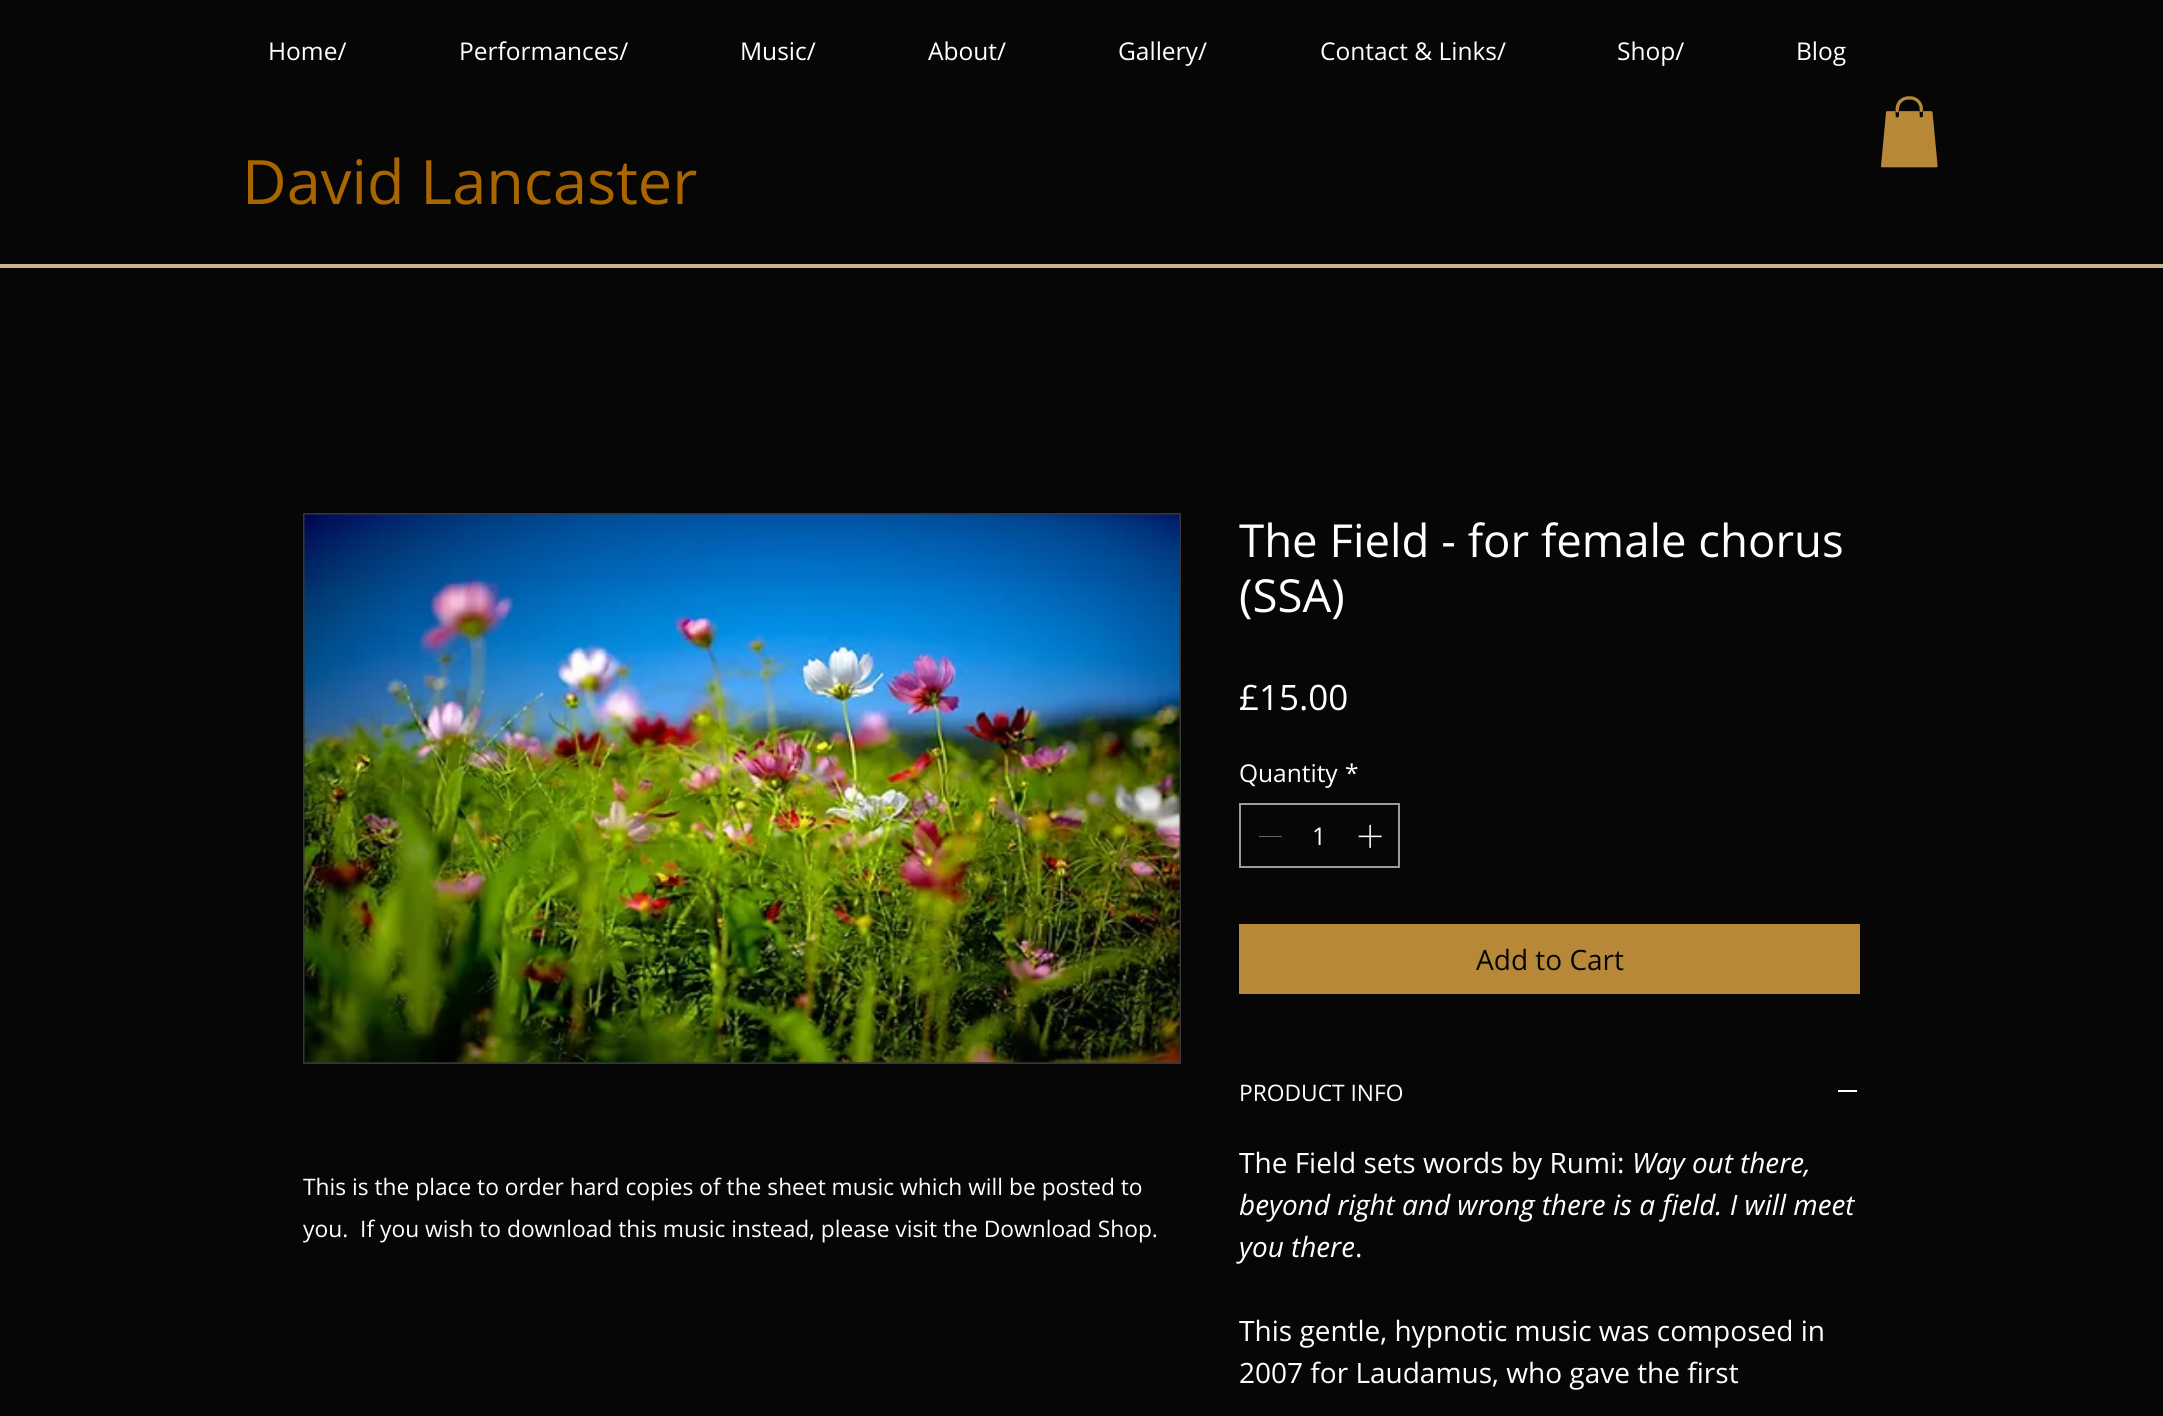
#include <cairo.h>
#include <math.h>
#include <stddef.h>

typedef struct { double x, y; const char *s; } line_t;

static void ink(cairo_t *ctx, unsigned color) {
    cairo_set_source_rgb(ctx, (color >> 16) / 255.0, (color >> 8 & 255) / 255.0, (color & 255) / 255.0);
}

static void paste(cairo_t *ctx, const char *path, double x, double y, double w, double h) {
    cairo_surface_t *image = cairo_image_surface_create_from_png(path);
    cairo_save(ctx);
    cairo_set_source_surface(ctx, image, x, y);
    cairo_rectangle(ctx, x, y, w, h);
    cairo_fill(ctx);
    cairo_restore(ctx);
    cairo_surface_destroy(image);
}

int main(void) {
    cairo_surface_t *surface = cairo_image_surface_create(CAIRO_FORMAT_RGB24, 2163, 1416);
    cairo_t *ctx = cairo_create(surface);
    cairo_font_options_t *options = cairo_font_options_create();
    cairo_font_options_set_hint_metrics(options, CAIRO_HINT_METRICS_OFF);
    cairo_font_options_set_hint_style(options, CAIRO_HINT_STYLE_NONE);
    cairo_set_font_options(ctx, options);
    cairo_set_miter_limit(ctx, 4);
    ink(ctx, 0x070606);
    cairo_paint(ctx);
    cairo_select_font_face(ctx, "Open Sans", CAIRO_FONT_SLANT_NORMAL, CAIRO_FONT_WEIGHT_NORMAL);
    cairo_set_font_size(ctx, 24.5);
    ink(ctx, 0xFFFFFF);
    {
        static const line_t items[] = {
            {268, 60, "Home/"},
            {459, 60, "Performances/"},
            {740, 60, "Music/"},
            {928, 60, "About/"},
            {1118, 60, "Gallery/"},
            {1320, 60, "Contact & Links/"},
            {1617, 60, "Shop/"},
            {1796, 60, "Blog"},
        };
        for (size_t i = 0; i < sizeof items / sizeof *items; i++) {
            cairo_move_to(ctx, items[i].x, items[i].y);
            cairo_show_text(ctx, items[i].s);
        }
    }
    paste(ctx, "media/1.png", 1881, 96, 57, 72);
    cairo_set_font_size(ctx, 61.25);
    ink(ctx, 0xA96500);
    cairo_move_to(ctx, 242, 204);
    cairo_show_text(ctx, "David Lancaster");
    ink(ctx, 0xCFB486);
    cairo_rectangle(ctx, 0, 264, 2163, 4);
    cairo_fill(ctx);
    cairo_rectangle(ctx, 304, 514, 876, 549);
    ink(ctx, 0x393535);
    cairo_stroke(ctx);
    paste(ctx, "media/2.png", 304, 514, 876, 549);
    cairo_set_font_size(ctx, 22.75);
    ink(ctx, 0xFFFFFF);
    cairo_move_to(ctx, 303, 1195);
    cairo_show_text(ctx, "This is the place to order hard copies of the sheet music which will be posted to");
    cairo_move_to(ctx, 303, 1237);
    cairo_show_text(ctx, "you.  If you wish to download this music instead, please visit the Download Shop.");
    cairo_set_font_size(ctx, 45.5);
    cairo_move_to(ctx, 1239, 557);
    cairo_show_text(ctx, "The Field - for female chorus");
    cairo_move_to(ctx, 1239, 612);
    cairo_show_text(ctx, "(SSA)");
    cairo_set_font_size(ctx, 35);
    cairo_move_to(ctx, 1239, 710);
    cairo_show_text(ctx, "£15.00");
    cairo_set_font_size(ctx, 24.5);
    cairo_move_to(ctx, 1239, 782);
    cairo_show_text(ctx, "Quantity");
    cairo_move_to(ctx, 1345, 782);
    cairo_show_text(ctx, "*");
    cairo_rectangle(ctx, 1240, 804, 159, 63);
    ink(ctx, 0x9C9B9B);
    cairo_stroke(ctx);
    ink(ctx, 0x676767);
    cairo_rectangle(ctx, 1259, 836, 23, 1);
    cairo_fill(ctx);
    ink(ctx, 0xFFFFFF);
    cairo_move_to(ctx, 1312, 845);
    cairo_show_text(ctx, "1");
    paste(ctx, "media/3.png", 1358, 824, 24, 24);
    ink(ctx, 0xB78837);
    cairo_rectangle(ctx, 1239, 924, 621, 70);
    cairo_fill(ctx);
    cairo_set_font_size(ctx, 28);
    ink(ctx, 0x070606);
    cairo_move_to(ctx, 1476, 970);
    cairo_show_text(ctx, "Add to Cart");
    cairo_set_font_size(ctx, 22.75);
    ink(ctx, 0xFFFFFF);
    cairo_move_to(ctx, 1239, 1101);
    cairo_show_text(ctx, "PRODUCT INFO");
    cairo_rectangle(ctx, 1838, 1090, 19, 2);
    cairo_fill(ctx);
    cairo_set_font_size(ctx, 28);
    cairo_move_to(ctx, 1239, 1173);
    cairo_show_text(ctx, "The Field sets words by Rumi:");
    cairo_select_font_face(ctx, "Open Sans", CAIRO_FONT_SLANT_ITALIC, CAIRO_FONT_WEIGHT_NORMAL);
    {
        static const line_t items[] = {
            {1632, 1173, "Way out there,"},
            {1239, 1215, "beyond right and wrong there is a field. I will meet"},
            {1239, 1257, "you there"},
        };
        for (size_t i = 0; i < sizeof items / sizeof *items; i++) {
            cairo_move_to(ctx, items[i].x, items[i].y);
            cairo_show_text(ctx, items[i].s);
        }
    }
    cairo_select_font_face(ctx, "Open Sans", CAIRO_FONT_SLANT_NORMAL, CAIRO_FONT_WEIGHT_NORMAL);
    {
        static const line_t items[] = {
            {1355, 1257, "."},
            {1239, 1341, "This gentle, hypnotic music was composed in"},
            {1239, 1383, "2007 for Laudamus, who gave the first"},
        };
        for (size_t i = 0; i < sizeof items / sizeof *items; i++) {
            cairo_move_to(ctx, items[i].x, items[i].y);
            cairo_show_text(ctx, items[i].s);
        }
    }
    cairo_surface_write_to_png(surface, "image.png");
    cairo_font_options_destroy(options);
    cairo_destroy(ctx);
    cairo_surface_destroy(surface);
    return 0;
}
